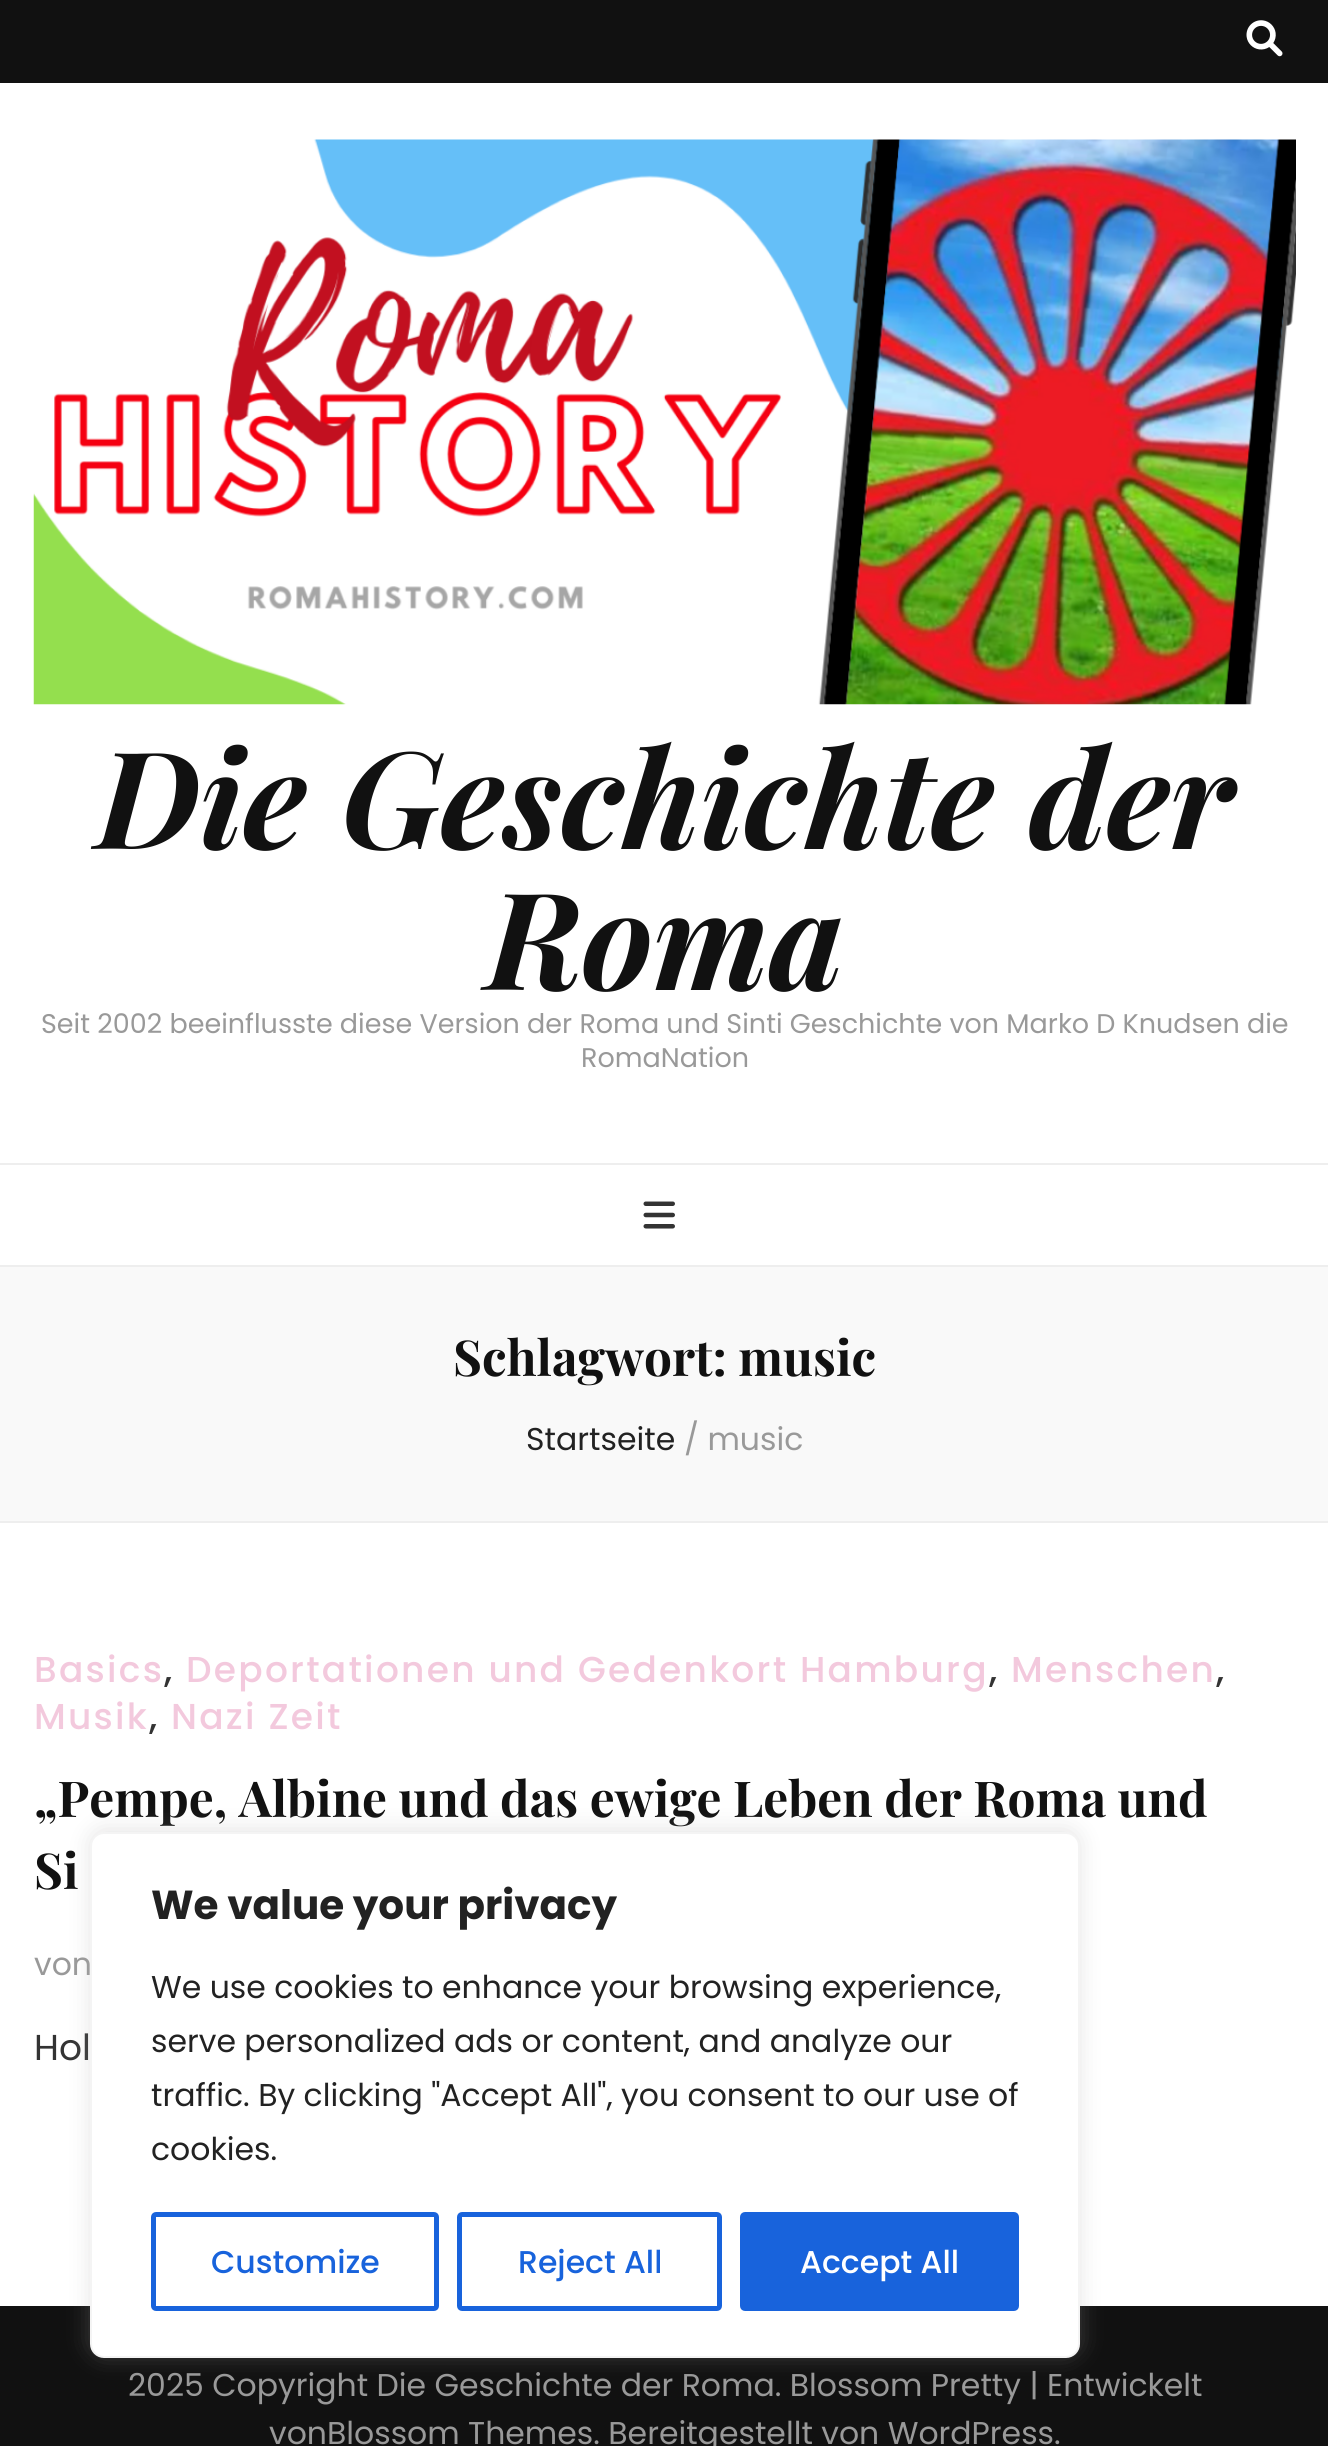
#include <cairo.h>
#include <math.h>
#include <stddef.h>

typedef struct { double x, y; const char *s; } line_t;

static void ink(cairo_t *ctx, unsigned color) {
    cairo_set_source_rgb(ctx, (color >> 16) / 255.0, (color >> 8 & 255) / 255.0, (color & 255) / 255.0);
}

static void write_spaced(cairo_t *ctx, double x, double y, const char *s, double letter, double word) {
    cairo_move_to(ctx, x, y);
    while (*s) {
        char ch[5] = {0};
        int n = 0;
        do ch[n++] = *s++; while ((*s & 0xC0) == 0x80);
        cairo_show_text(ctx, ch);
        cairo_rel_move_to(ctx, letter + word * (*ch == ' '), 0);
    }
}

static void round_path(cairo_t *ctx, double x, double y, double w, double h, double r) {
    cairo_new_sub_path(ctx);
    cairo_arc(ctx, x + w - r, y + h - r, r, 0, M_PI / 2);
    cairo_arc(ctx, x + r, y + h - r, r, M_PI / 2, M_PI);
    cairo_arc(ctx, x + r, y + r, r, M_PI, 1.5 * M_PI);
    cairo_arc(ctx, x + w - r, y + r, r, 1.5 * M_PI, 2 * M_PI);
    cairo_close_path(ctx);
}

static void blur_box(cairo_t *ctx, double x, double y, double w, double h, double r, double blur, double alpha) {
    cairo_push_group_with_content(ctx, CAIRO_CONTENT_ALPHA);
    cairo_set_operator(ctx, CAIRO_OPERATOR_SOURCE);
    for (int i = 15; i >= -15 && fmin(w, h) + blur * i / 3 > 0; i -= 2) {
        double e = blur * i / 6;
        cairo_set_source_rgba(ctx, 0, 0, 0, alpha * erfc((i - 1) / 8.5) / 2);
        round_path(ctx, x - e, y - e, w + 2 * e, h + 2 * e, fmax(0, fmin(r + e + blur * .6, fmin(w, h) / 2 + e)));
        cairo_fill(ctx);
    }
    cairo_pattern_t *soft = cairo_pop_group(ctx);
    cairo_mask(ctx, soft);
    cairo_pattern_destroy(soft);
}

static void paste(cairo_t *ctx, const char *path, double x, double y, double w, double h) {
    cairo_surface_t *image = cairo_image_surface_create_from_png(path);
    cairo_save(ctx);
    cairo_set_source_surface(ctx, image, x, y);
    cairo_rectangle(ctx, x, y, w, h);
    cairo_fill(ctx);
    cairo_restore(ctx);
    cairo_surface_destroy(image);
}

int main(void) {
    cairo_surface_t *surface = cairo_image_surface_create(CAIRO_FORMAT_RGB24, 1328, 2446);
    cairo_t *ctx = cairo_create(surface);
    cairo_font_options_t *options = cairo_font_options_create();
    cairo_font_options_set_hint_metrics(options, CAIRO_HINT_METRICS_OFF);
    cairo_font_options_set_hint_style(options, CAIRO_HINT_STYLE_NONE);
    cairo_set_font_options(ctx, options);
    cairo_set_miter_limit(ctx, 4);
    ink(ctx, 0xFFFFFF);
    cairo_paint(ctx);
    ink(ctx, 0x111111);
    cairo_rectangle(ctx, 0, 0, 1328, 83);
    cairo_fill(ctx);
    paste(ctx, "media/1.png", 1246, 20, 37, 37);
    paste(ctx, "media/2.png", 33, 139, 1263, 566);
    cairo_select_font_face(ctx, "Playfair Display", CAIRO_FONT_SLANT_ITALIC, CAIRO_FONT_WEIGHT_BOLD);
    cairo_set_font_size(ctx, 135);
    cairo_move_to(ctx, 96, 849);
    cairo_show_text(ctx, "Die Geschichte der");
    cairo_move_to(ctx, 486, 990);
    cairo_show_text(ctx, "Roma");
    cairo_select_font_face(ctx, "Poppins", CAIRO_FONT_SLANT_NORMAL, CAIRO_FONT_WEIGHT_NORMAL);
    cairo_set_font_size(ctx, 27);
    ink(ctx, 0x999999);
    cairo_move_to(ctx, 41, 1033);
    cairo_show_text(ctx, "Seit 2002 beeinflusste diese Version der Roma und Sinti Geschichte von Marko D Knudsen die");
    cairo_move_to(ctx, 581, 1067);
    cairo_show_text(ctx, "RomaNation");
    ink(ctx, 0xEEEEEE);
    cairo_rectangle(ctx, 0, 1163, 1328, 2);
    cairo_fill(ctx);
    cairo_rectangle(ctx, 0, 1265, 1328, 2);
    cairo_fill(ctx);
    paste(ctx, "media/3.png", 643, 1201, 32, 28);
    ink(ctx, 0xF9F9F9);
    cairo_rectangle(ctx, 0, 1267, 1328, 254);
    cairo_fill(ctx);
    ink(ctx, 0xEEEEEE);
    cairo_rectangle(ctx, 0, 1521, 1328, 2);
    cairo_fill(ctx);
    cairo_select_font_face(ctx, "Playfair Display", CAIRO_FONT_SLANT_NORMAL, CAIRO_FONT_WEIGHT_BOLD);
    cairo_set_font_size(ctx, 49.5);
    ink(ctx, 0x111111);
    cairo_move_to(ctx, 453, 1376);
    cairo_show_text(ctx, "Schlagwort: music");
    cairo_select_font_face(ctx, "Poppins", CAIRO_FONT_SLANT_NORMAL, CAIRO_FONT_WEIGHT_NORMAL);
    cairo_set_font_size(ctx, 31.5);
    ink(ctx, 0x222222);
    cairo_move_to(ctx, 526, 1450);
    cairo_show_text(ctx, "Startseite");
    ink(ctx, 0x999999);
    cairo_move_to(ctx, 684, 1450);
    cairo_show_text(ctx, "/ music");
    cairo_select_font_face(ctx, "Poppins Medium", CAIRO_FONT_SLANT_NORMAL, CAIRO_FONT_WEIGHT_NORMAL);
    cairo_set_font_size(ctx, 36);
    ink(ctx, 0xF3C9DD);
    write_spaced(ctx, 34, 1682, "Basics", 2.25, 0);
    ink(ctx, 0x333333);
    write_spaced(ctx, 164, 1682, ",", 2.25, 0);
    ink(ctx, 0xF3C9DD);
    write_spaced(ctx, 186, 1682, "Deportationen und Gedenkort Hamburg", 2.25, 0);
    ink(ctx, 0x333333);
    write_spaced(ctx, 989, 1682, ",", 2.25, 0);
    ink(ctx, 0xF3C9DD);
    write_spaced(ctx, 1011, 1682, "Menschen", 2.25, 0);
    ink(ctx, 0x333333);
    write_spaced(ctx, 1216, 1682, ",", 2.25, 0);
    ink(ctx, 0xF3C9DD);
    write_spaced(ctx, 34, 1729, "Musik", 2.25, 0);
    ink(ctx, 0x333333);
    write_spaced(ctx, 149, 1729, ",", 2.25, 0);
    ink(ctx, 0xF3C9DD);
    write_spaced(ctx, 171, 1729, "Nazi Zeit", 2.25, 0);
    cairo_select_font_face(ctx, "Playfair Display", CAIRO_FONT_SLANT_NORMAL, CAIRO_FONT_WEIGHT_BOLD);
    cairo_set_font_size(ctx, 49.5);
    ink(ctx, 0x111111);
    cairo_move_to(ctx, 34, 1817);
    cairo_show_text(ctx, "„Pempe, Albine und das ewige Leben der Roma und");
    cairo_move_to(ctx, 34, 1889);
    cairo_show_text(ctx, "Si");
    cairo_select_font_face(ctx, "Poppins", CAIRO_FONT_SLANT_NORMAL, CAIRO_FONT_WEIGHT_NORMAL);
    cairo_set_font_size(ctx, 31.5);
    ink(ctx, 0x999999);
    cairo_move_to(ctx, 34, 1975);
    cairo_show_text(ctx, "von");
    cairo_set_font_size(ctx, 36);
    ink(ctx, 0x333333);
    cairo_move_to(ctx, 34, 2060);
    cairo_show_text(ctx, "Hol");
    ink(ctx, 0x111111);
    cairo_rectangle(ctx, 0, 2306, 1328, 140);
    cairo_fill(ctx);
    cairo_set_font_size(ctx, 31.5);
    ink(ctx, 0x999999);
    cairo_move_to(ctx, 128, 2396);
    cairo_show_text(ctx, "2025 Copyright Die Geschichte der Roma. Blossom Pretty | Entwickelt");
    cairo_move_to(ctx, 269, 2444);
    cairo_show_text(ctx, "vonBlossom Themes. Bereitgestellt von WordPress.");
    ink(ctx, 0xACABAB);
    blur_box(ctx, 90, 1829, 990, 527, 14, 11, 0.3);
    ink(ctx, 0xFFFFFF);
    round_path(ctx, 91, 1833, 988, 524, 13);
    cairo_fill_preserve(ctx);
    ink(ctx, 0xF4F4F4);
    cairo_stroke(ctx);
    cairo_select_font_face(ctx, "Poppins", CAIRO_FONT_SLANT_NORMAL, CAIRO_FONT_WEIGHT_BOLD);
    cairo_set_font_size(ctx, 40.5);
    ink(ctx, 0x222222);
    cairo_move_to(ctx, 151, 1919);
    cairo_show_text(ctx, "We value your privacy");
    cairo_select_font_face(ctx, "Poppins", CAIRO_FONT_SLANT_NORMAL, CAIRO_FONT_WEIGHT_NORMAL);
    cairo_set_font_size(ctx, 31.5);
    {
        static const line_t items[] = {
            {151, 1998, "We use cookies to enhance your browsing experience,"},
            {151, 2052, "serve personalized ads or content, and analyze our"},
            {151, 2106, "traffic. By clicking \"Accept All\", you consent to our use of"},
            {151, 2160, "cookies."},
        };
        for (size_t i = 0; i < sizeof items / sizeof *items; i++) {
            cairo_move_to(ctx, items[i].x, items[i].y);
            cairo_show_text(ctx, items[i].s);
        }
    }
    round_path(ctx, 153.5, 2214.5, 283, 94, 2.5);
    ink(ctx, 0x1863DC);
    cairo_set_line_width(ctx, 5);
    cairo_stroke(ctx);
    cairo_select_font_face(ctx, "Poppins Medium", CAIRO_FONT_SLANT_NORMAL, CAIRO_FONT_WEIGHT_NORMAL);
    cairo_move_to(ctx, 211, 2273);
    cairo_show_text(ctx, "Customize");
    round_path(ctx, 459.5, 2214.5, 260, 94, 2.5);
    cairo_stroke(ctx);
    cairo_move_to(ctx, 518, 2273);
    cairo_show_text(ctx, "Reject All");
    round_path(ctx, 742.5, 2214.5, 274, 94, 2.5);
    cairo_fill_preserve(ctx);
    cairo_stroke(ctx);
    ink(ctx, 0xFFFFFF);
    cairo_move_to(ctx, 800, 2273);
    cairo_show_text(ctx, "Accept All");
    cairo_surface_write_to_png(surface, "image.png");
    cairo_font_options_destroy(options);
    cairo_destroy(ctx);
    cairo_surface_destroy(surface);
    return 0;
}
